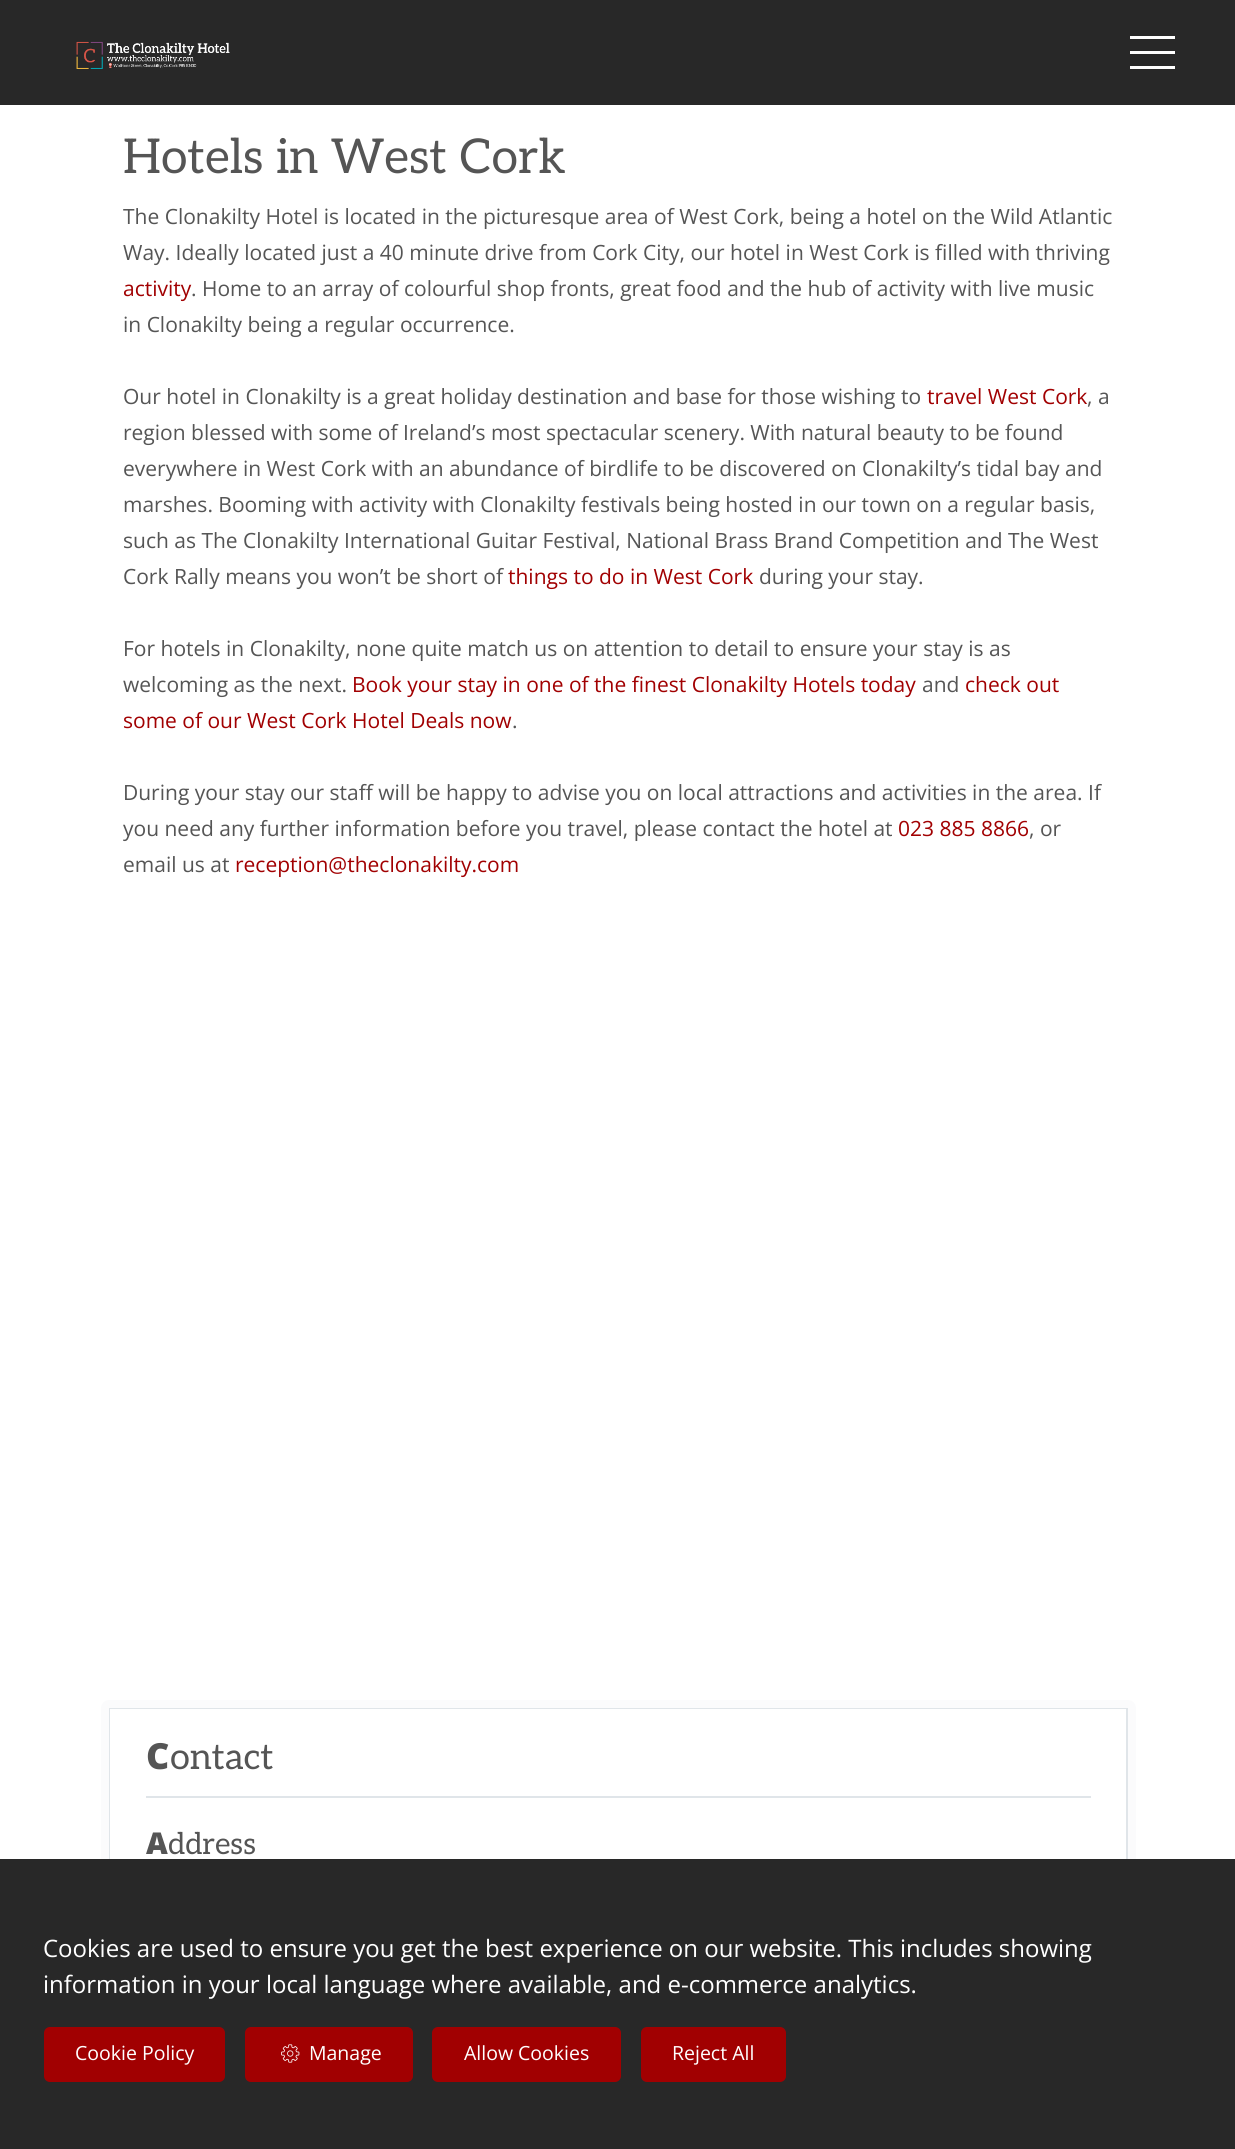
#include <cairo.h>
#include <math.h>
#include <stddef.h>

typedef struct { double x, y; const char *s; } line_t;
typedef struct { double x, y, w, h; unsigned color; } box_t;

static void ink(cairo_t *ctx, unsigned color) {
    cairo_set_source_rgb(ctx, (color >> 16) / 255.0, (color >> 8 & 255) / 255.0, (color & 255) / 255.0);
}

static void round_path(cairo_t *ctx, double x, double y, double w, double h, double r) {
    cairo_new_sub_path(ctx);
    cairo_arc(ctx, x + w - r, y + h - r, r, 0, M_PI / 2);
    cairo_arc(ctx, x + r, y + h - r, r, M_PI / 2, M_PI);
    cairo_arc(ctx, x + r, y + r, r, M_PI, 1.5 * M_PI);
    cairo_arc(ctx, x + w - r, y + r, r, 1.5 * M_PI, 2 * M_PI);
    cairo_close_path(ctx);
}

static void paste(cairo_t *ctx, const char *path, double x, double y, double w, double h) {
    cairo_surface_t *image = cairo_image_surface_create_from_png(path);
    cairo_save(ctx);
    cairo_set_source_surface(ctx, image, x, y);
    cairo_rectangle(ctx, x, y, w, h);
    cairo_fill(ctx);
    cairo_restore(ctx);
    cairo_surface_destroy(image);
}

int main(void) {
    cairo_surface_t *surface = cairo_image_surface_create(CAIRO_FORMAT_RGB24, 1235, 2149);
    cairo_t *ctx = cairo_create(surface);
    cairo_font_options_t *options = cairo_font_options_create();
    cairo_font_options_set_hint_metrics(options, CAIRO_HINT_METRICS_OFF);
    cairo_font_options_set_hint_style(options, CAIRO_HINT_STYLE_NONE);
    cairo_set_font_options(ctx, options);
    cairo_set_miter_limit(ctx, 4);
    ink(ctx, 0xFFFFFF);
    cairo_paint(ctx);
    ink(ctx, 0x282828);
    cairo_rectangle(ctx, 0, 0, 1235, 105);
    cairo_fill(ctx);
    paste(ctx, "media/1.png", 76, 41, 154, 28);
    {
        static const box_t items[] = {
            {1130, 51, 45, 3, 0xFFFFFF},
            {1130, 36, 45, 3, 0xFFFFFF},
            {1130, 66, 45, 3, 0xFFFFFF},
        };
        for (size_t i = 0; i < sizeof items / sizeof *items; i++) {
            ink(ctx, items[i].color);
            cairo_rectangle(ctx, items[i].x, items[i].y, items[i].w, items[i].h);
            cairo_fill(ctx);
        }
    }
    cairo_select_font_face(ctx, "Aleo", CAIRO_FONT_SLANT_NORMAL, CAIRO_FONT_WEIGHT_NORMAL);
    cairo_set_font_size(ctx, 48);
    ink(ctx, 0x555555);
    cairo_move_to(ctx, 123, 173);
    cairo_show_text(ctx, "Hotels in West Cork");
    cairo_select_font_face(ctx, "Open Sans", CAIRO_FONT_SLANT_NORMAL, CAIRO_FONT_WEIGHT_NORMAL);
    cairo_set_font_size(ctx, 21);
    cairo_move_to(ctx, 123, 224);
    cairo_show_text(ctx, "The Clonakilty Hotel is located in the picturesque area of West Cork, being a hotel on the Wild Atlantic");
    cairo_move_to(ctx, 123, 260);
    cairo_show_text(ctx, "Way. Ideally located just a 40 minute drive from Cork City, our hotel in West Cork is filled with thriving");
    ink(ctx, 0xA10001);
    cairo_move_to(ctx, 123, 296);
    cairo_show_text(ctx, "activity");
    ink(ctx, 0x555555);
    {
        static const line_t items[] = {
            {191, 296, ". Home to an array of colourful shop fronts, great food and the hub of activity with live music"},
            {123, 332, "in Clonakilty being a regular occurrence."},
            {123, 404, "Our hotel in Clonakilty is a great holiday destination and base for those wishing to"},
        };
        for (size_t i = 0; i < sizeof items / sizeof *items; i++) {
            cairo_move_to(ctx, items[i].x, items[i].y);
            cairo_show_text(ctx, items[i].s);
        }
    }
    ink(ctx, 0xA10001);
    cairo_move_to(ctx, 927, 404);
    cairo_show_text(ctx, "travel West Cork");
    ink(ctx, 0x555555);
    {
        static const line_t items[] = {
            {1087, 404, ", a"},
            {123, 440, "region blessed with some of Ireland’s most spectacular scenery. With natural beauty to be found"},
            {123, 476, "everywhere in West Cork with an abundance of birdlife to be discovered on Clonakilty’s tidal bay and"},
            {123, 512, "marshes. Booming with activity with Clonakilty festivals being hosted in our town on a regular basis,"},
            {123, 548, "such as The Clonakilty International Guitar Festival, National Brass Brand Competition and The West"},
            {123, 584, "Cork Rally means you won’t be short of"},
        };
        for (size_t i = 0; i < sizeof items / sizeof *items; i++) {
            cairo_move_to(ctx, items[i].x, items[i].y);
            cairo_show_text(ctx, items[i].s);
        }
    }
    ink(ctx, 0xA10001);
    cairo_move_to(ctx, 508, 584);
    cairo_show_text(ctx, "things to do in West Cork");
    ink(ctx, 0x555555);
    {
        static const line_t items[] = {
            {759, 584, "during your stay."},
            {123, 656, "For hotels in Clonakilty, none quite match us on attention to detail to ensure your stay is as"},
            {123, 692, "welcoming as the next."},
        };
        for (size_t i = 0; i < sizeof items / sizeof *items; i++) {
            cairo_move_to(ctx, items[i].x, items[i].y);
            cairo_show_text(ctx, items[i].s);
        }
    }
    ink(ctx, 0xA10001);
    cairo_move_to(ctx, 352, 692);
    cairo_show_text(ctx, "Book your stay in one of the finest Clonakilty Hotels today");
    ink(ctx, 0x555555);
    cairo_move_to(ctx, 922, 692);
    cairo_show_text(ctx, "and");
    ink(ctx, 0xA10001);
    cairo_move_to(ctx, 965, 692);
    cairo_show_text(ctx, "check out");
    cairo_move_to(ctx, 123, 728);
    cairo_show_text(ctx, "some of our West Cork Hotel Deals now");
    ink(ctx, 0x555555);
    {
        static const line_t items[] = {
            {512, 728, "."},
            {123, 800, "During your stay our staff will be happy to advise you on local attractions and activities in the area. If"},
            {123, 836, "you need any further information before you travel, please contact the hotel at"},
        };
        for (size_t i = 0; i < sizeof items / sizeof *items; i++) {
            cairo_move_to(ctx, items[i].x, items[i].y);
            cairo_show_text(ctx, items[i].s);
        }
    }
    ink(ctx, 0xA10001);
    cairo_move_to(ctx, 898, 836);
    cairo_show_text(ctx, "023 885 8866");
    ink(ctx, 0x555555);
    cairo_move_to(ctx, 1029, 836);
    cairo_show_text(ctx, ", or");
    cairo_move_to(ctx, 123, 872);
    cairo_show_text(ctx, "email us at");
    ink(ctx, 0xA10001);
    cairo_move_to(ctx, 235, 872);
    cairo_show_text(ctx, "reception@theclonakilty.com");
    cairo_rectangle(ctx, 109, 1708, 1018, 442);
    ink(ctx, 0xE0E5E9);
    cairo_stroke(ctx);
    round_path(ctx, 105, 1704, 1027, 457, 4);
    ink(ctx, 0xFBFBFC);
    cairo_set_line_width(ctx, 8);
    cairo_stroke(ctx);
    ink(ctx, 0xE0E5E9);
    cairo_rectangle(ctx, 146, 1796, 945, 2);
    cairo_fill(ctx);
    cairo_select_font_face(ctx, "Noto Sans Black", CAIRO_FONT_SLANT_NORMAL, CAIRO_FONT_WEIGHT_NORMAL);
    cairo_set_font_size(ctx, 36);
    ink(ctx, 0x555555);
    cairo_move_to(ctx, 146, 1769);
    cairo_show_text(ctx, "C");
    cairo_select_font_face(ctx, "Aleo", CAIRO_FONT_SLANT_NORMAL, CAIRO_FONT_WEIGHT_NORMAL);
    cairo_move_to(ctx, 170, 1769);
    cairo_show_text(ctx, "ontact");
    cairo_select_font_face(ctx, "Noto Sans Black", CAIRO_FONT_SLANT_NORMAL, CAIRO_FONT_WEIGHT_NORMAL);
    cairo_set_font_size(ctx, 30);
    cairo_move_to(ctx, 146, 1854);
    cairo_show_text(ctx, "A");
    cairo_select_font_face(ctx, "Aleo", CAIRO_FONT_SLANT_NORMAL, CAIRO_FONT_WEIGHT_NORMAL);
    cairo_move_to(ctx, 168, 1854);
    cairo_show_text(ctx, "ddress");
    ink(ctx, 0x282828);
    cairo_rectangle(ctx, 0, 1859, 1235, 290);
    cairo_fill(ctx);
    cairo_select_font_face(ctx, "Open Sans", CAIRO_FONT_SLANT_NORMAL, CAIRO_FONT_WEIGHT_NORMAL);
    cairo_set_font_size(ctx, 24);
    ink(ctx, 0xFFFFFF);
    cairo_move_to(ctx, 43, 1957);
    cairo_show_text(ctx, "Cookies are used to ensure you get the best experience on our website. This includes showing");
    cairo_move_to(ctx, 43, 1993);
    cairo_show_text(ctx, "information in your local language where available, and e-commerce analytics.");
    ink(ctx, 0xA10001);
    round_path(ctx, 45, 2028, 179, 53, 5);
    cairo_fill_preserve(ctx);
    cairo_set_line_width(ctx, 2);
    cairo_stroke(ctx);
    cairo_set_font_size(ctx, 19.5);
    ink(ctx, 0xFFFFFF);
    cairo_move_to(ctx, 75, 2060);
    cairo_show_text(ctx, "Cookie Policy");
    ink(ctx, 0xA10001);
    round_path(ctx, 246, 2028, 166, 53, 5);
    cairo_fill_preserve(ctx);
    cairo_stroke(ctx);
    paste(ctx, "media/2.png", 281, 2044, 19, 19);
    ink(ctx, 0xFFFFFF);
    cairo_move_to(ctx, 309, 2060);
    cairo_show_text(ctx, "Manage");
    ink(ctx, 0xA10001);
    round_path(ctx, 433, 2028, 187, 53, 5);
    cairo_fill_preserve(ctx);
    cairo_stroke(ctx);
    ink(ctx, 0xFFFFFF);
    cairo_move_to(ctx, 464, 2060);
    cairo_show_text(ctx, "Allow Cookies");
    ink(ctx, 0xA10001);
    round_path(ctx, 642, 2028, 143, 53, 5);
    cairo_fill_preserve(ctx);
    cairo_stroke(ctx);
    ink(ctx, 0xFFFFFF);
    cairo_move_to(ctx, 672, 2060);
    cairo_show_text(ctx, "Reject All");
    cairo_surface_write_to_png(surface, "image.png");
    cairo_font_options_destroy(options);
    cairo_destroy(ctx);
    cairo_surface_destroy(surface);
    return 0;
}
